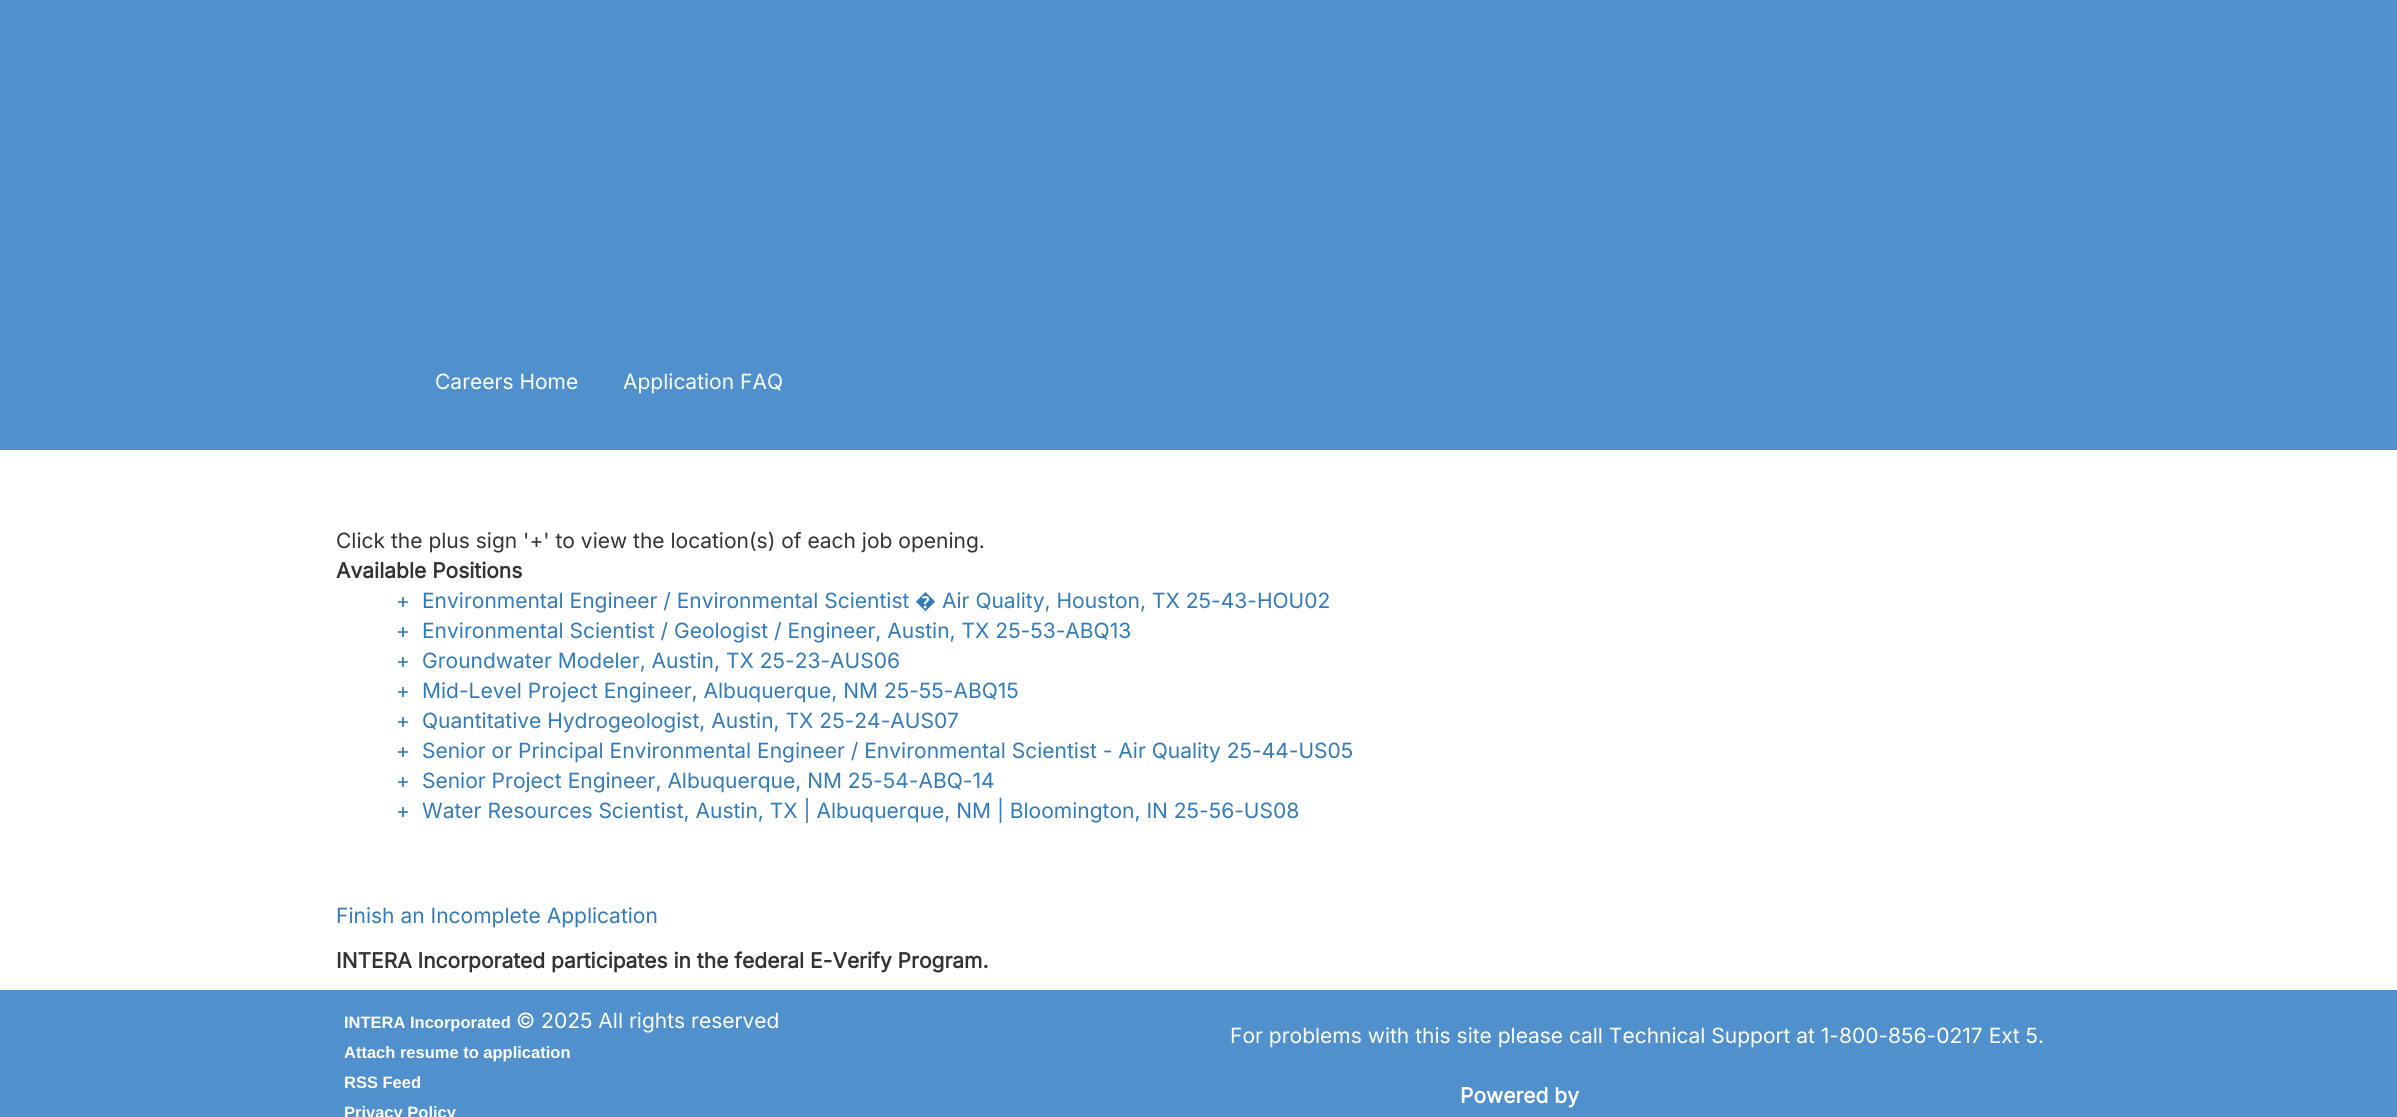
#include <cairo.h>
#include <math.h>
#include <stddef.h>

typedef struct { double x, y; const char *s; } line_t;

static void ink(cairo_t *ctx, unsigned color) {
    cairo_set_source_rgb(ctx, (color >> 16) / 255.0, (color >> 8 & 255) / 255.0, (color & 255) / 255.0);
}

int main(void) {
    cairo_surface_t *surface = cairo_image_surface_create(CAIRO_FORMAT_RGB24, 2397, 1117);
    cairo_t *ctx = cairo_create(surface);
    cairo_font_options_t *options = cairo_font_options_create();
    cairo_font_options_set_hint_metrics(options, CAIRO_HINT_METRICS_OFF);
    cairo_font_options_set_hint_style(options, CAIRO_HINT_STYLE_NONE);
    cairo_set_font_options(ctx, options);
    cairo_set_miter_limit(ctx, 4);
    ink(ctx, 0xFFFFFF);
    cairo_paint(ctx);
    ink(ctx, 0x5091CD);
    cairo_rectangle(ctx, 0, 0, 2397, 450);
    cairo_fill(ctx);
    cairo_select_font_face(ctx, "Inter", CAIRO_FONT_SLANT_NORMAL, CAIRO_FONT_WEIGHT_NORMAL);
    cairo_set_font_size(ctx, 21);
    ink(ctx, 0xFFFFFF);
    cairo_move_to(ctx, 435, 389);
    cairo_show_text(ctx, "Careers Home");
    cairo_move_to(ctx, 623, 389);
    cairo_show_text(ctx, "Application FAQ");
    ink(ctx, 0x333333);
    cairo_move_to(ctx, 336, 548);
    cairo_show_text(ctx, "Click the plus sign '+' to view the location(s) of each job opening.");
    cairo_select_font_face(ctx, "Inter", CAIRO_FONT_SLANT_NORMAL, CAIRO_FONT_WEIGHT_BOLD);
    cairo_move_to(ctx, 336, 578);
    cairo_show_text(ctx, "Available Positions");
    cairo_select_font_face(ctx, "Inter", CAIRO_FONT_SLANT_NORMAL, CAIRO_FONT_WEIGHT_NORMAL);
    ink(ctx, 0x337AB7);
    cairo_move_to(ctx, 396, 608);
    cairo_show_text(ctx, "+");
    cairo_move_to(ctx, 422, 608);
    cairo_show_text(ctx, "Environmental Engineer / Environmental Scientist");
    cairo_select_font_face(ctx, "Noto Sans", CAIRO_FONT_SLANT_NORMAL, CAIRO_FONT_WEIGHT_NORMAL);
    cairo_move_to(ctx, 915, 608);
    cairo_show_text(ctx, "�");
    cairo_select_font_face(ctx, "Inter", CAIRO_FONT_SLANT_NORMAL, CAIRO_FONT_WEIGHT_NORMAL);
    {
        static const line_t items[] = {
            {942, 608, "Air Quality, Houston, TX 25-43-HOU02"},
            {396, 638, "+"},
            {422, 638, "Environmental Scientist / Geologist / Engineer, Austin, TX 25-53-ABQ13"},
            {396, 668, "+"},
            {422, 668, "Groundwater Modeler, Austin, TX 25-23-AUS06"},
            {396, 698, "+"},
            {422, 698, "Mid-Level Project Engineer, Albuquerque, NM 25-55-ABQ15"},
            {396, 728, "+"},
            {422, 728, "Quantitative Hydrogeologist, Austin, TX 25-24-AUS07"},
            {396, 758, "+"},
            {422, 758, "Senior or Principal Environmental Engineer / Environmental Scientist - Air Quality 25-44-US05"},
            {396, 788, "+"},
            {422, 788, "Senior Project Engineer, Albuquerque, NM 25-54-ABQ-14"},
            {396, 818, "+"},
            {422, 818, "Water Resources Scientist, Austin, TX | Albuquerque, NM | Bloomington, IN 25-56-US08"},
            {336, 923, "Finish an Incomplete Application"},
        };
        for (size_t i = 0; i < sizeof items / sizeof *items; i++) {
            cairo_move_to(ctx, items[i].x, items[i].y);
            cairo_show_text(ctx, items[i].s);
        }
    }
    cairo_select_font_face(ctx, "Inter", CAIRO_FONT_SLANT_NORMAL, CAIRO_FONT_WEIGHT_BOLD);
    ink(ctx, 0x333333);
    cairo_move_to(ctx, 336, 968);
    cairo_show_text(ctx, "INTERA Incorporated participates in the federal E-Verify Program.");
    ink(ctx, 0x5091CD);
    cairo_rectangle(ctx, 0, 990, 2397, 127);
    cairo_fill(ctx);
    cairo_select_font_face(ctx, "Liberation Sans", CAIRO_FONT_SLANT_NORMAL, CAIRO_FONT_WEIGHT_BOLD);
    cairo_set_font_size(ctx, 16.5);
    ink(ctx, 0xFFFFFF);
    cairo_move_to(ctx, 344, 1028);
    cairo_show_text(ctx, "INTERA Incorporated");
    cairo_select_font_face(ctx, "Inter", CAIRO_FONT_SLANT_NORMAL, CAIRO_FONT_WEIGHT_NORMAL);
    cairo_set_font_size(ctx, 21);
    cairo_move_to(ctx, 516, 1028);
    cairo_show_text(ctx, "© 2025 All rights reserved");
    cairo_select_font_face(ctx, "Liberation Sans", CAIRO_FONT_SLANT_NORMAL, CAIRO_FONT_WEIGHT_BOLD);
    cairo_set_font_size(ctx, 16.5);
    {
        static const line_t items[] = {
            {344, 1058, "Attach resume to application"},
            {344, 1088, "RSS Feed"},
            {344, 1118, "Privacy Policy"},
        };
        for (size_t i = 0; i < sizeof items / sizeof *items; i++) {
            cairo_move_to(ctx, items[i].x, items[i].y);
            cairo_show_text(ctx, items[i].s);
        }
    }
    cairo_select_font_face(ctx, "Inter", CAIRO_FONT_SLANT_NORMAL, CAIRO_FONT_WEIGHT_NORMAL);
    cairo_set_font_size(ctx, 21);
    cairo_move_to(ctx, 1230, 1043);
    cairo_show_text(ctx, "For problems with this site please call Technical Support at 1-800-856-0217 Ext 5.");
    cairo_select_font_face(ctx, "Inter", CAIRO_FONT_SLANT_NORMAL, CAIRO_FONT_WEIGHT_BOLD);
    cairo_move_to(ctx, 1460, 1103);
    cairo_show_text(ctx, "Powered by");
    cairo_surface_write_to_png(surface, "image.png");
    cairo_font_options_destroy(options);
    cairo_destroy(ctx);
    cairo_surface_destroy(surface);
    return 0;
}
